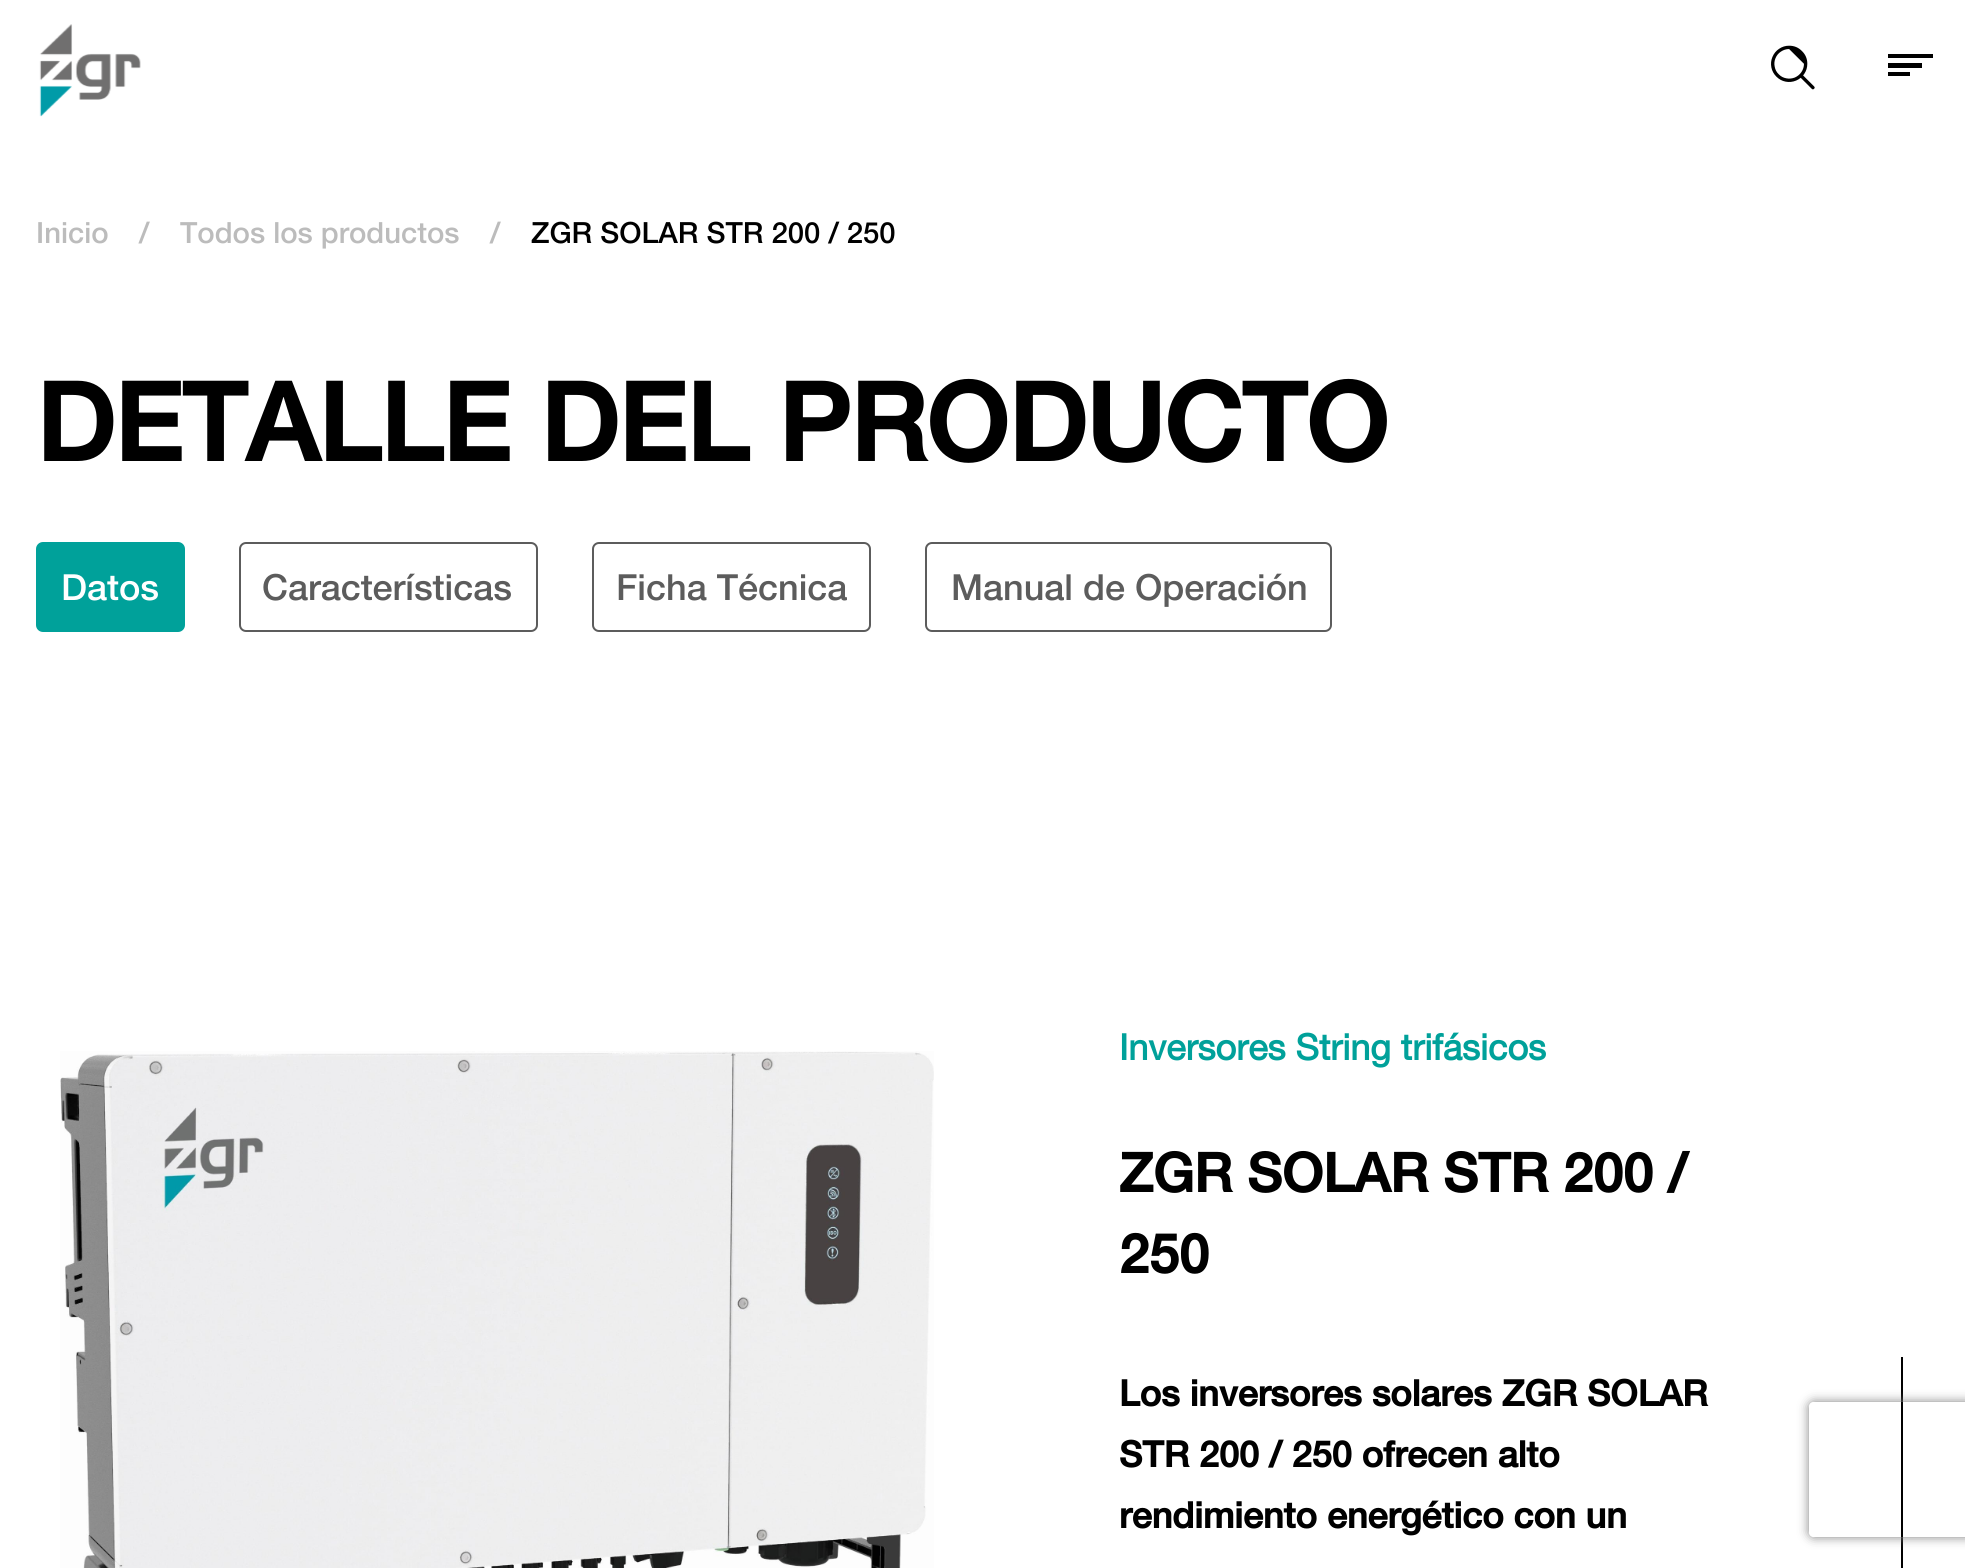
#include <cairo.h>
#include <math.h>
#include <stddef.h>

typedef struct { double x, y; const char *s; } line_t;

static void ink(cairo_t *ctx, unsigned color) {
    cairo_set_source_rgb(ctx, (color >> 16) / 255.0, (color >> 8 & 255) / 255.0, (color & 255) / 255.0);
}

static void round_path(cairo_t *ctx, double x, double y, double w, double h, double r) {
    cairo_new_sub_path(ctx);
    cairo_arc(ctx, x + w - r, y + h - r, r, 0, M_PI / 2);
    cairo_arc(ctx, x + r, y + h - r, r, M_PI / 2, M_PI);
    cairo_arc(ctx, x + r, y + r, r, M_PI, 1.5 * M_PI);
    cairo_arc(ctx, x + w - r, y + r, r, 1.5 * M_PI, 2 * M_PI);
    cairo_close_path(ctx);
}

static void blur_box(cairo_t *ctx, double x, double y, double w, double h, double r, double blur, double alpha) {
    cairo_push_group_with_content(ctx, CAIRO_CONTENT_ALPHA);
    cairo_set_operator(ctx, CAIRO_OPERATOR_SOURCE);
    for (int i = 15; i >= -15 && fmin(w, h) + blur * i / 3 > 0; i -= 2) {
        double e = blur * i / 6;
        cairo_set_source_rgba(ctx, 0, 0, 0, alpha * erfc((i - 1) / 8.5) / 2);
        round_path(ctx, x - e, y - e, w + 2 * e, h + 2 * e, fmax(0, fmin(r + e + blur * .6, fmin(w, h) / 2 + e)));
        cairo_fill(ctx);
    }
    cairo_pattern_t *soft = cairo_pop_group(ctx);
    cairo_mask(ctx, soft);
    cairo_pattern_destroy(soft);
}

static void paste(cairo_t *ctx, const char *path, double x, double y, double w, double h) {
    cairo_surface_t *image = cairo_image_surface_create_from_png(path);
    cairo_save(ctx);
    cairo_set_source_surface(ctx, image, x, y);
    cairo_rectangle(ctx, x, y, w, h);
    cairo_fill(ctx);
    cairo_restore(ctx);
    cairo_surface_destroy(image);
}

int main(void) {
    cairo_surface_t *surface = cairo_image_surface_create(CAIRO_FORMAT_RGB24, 1965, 1568);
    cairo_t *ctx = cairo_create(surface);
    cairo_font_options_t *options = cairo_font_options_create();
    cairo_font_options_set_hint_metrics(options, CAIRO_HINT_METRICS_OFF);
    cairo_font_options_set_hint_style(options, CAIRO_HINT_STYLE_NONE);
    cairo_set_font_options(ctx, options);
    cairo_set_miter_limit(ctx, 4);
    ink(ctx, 0xFFFFFF);
    cairo_paint(ctx);
    paste(ctx, "media/1.png", 39, 24, 102, 93);
    paste(ctx, "media/2.png", 1771, 45, 44, 45);
    ink(ctx, 0x000000);
    cairo_new_path(ctx);
    cairo_move_to(ctx, 1888, 54);
    cairo_line_to(ctx, 1933, 54);
    cairo_line_to(ctx, 1933, 58);
    cairo_line_to(ctx, 1888, 58);
    cairo_close_path(ctx);
    cairo_move_to(ctx, 1888, 63);
    cairo_line_to(ctx, 1922, 63);
    cairo_line_to(ctx, 1922, 68);
    cairo_line_to(ctx, 1888, 68);
    cairo_close_path(ctx);
    cairo_move_to(ctx, 1888, 72);
    cairo_line_to(ctx, 1910, 72);
    cairo_line_to(ctx, 1910, 76);
    cairo_line_to(ctx, 1888, 76);
    cairo_close_path(ctx);
    cairo_fill(ctx);
    cairo_select_font_face(ctx, "Helvetica Neue Medium", CAIRO_FONT_SLANT_NORMAL, CAIRO_FONT_WEIGHT_NORMAL);
    cairo_set_font_size(ctx, 29.25);
    ink(ctx, 0xBCBCBC);
    {
        static const line_t items[] = {
            {36, 243, "Inicio"},
            {139, 243, "/"},
            {180, 243, "Todos los productos"},
            {490, 243, "/"},
        };
        for (size_t i = 0; i < sizeof items / sizeof *items; i++) {
            cairo_move_to(ctx, items[i].x, items[i].y);
            cairo_show_text(ctx, items[i].s);
        }
    }
    ink(ctx, 0x000000);
    cairo_move_to(ctx, 531, 243);
    cairo_show_text(ctx, "ZGR SOLAR STR 200 / 250");
    cairo_select_font_face(ctx, "Helvetica Neue", CAIRO_FONT_SLANT_NORMAL, CAIRO_FONT_WEIGHT_BOLD);
    cairo_set_font_size(ctx, 108);
    cairo_move_to(ctx, 36, 461);
    cairo_show_text(ctx, "DETALLE DEL PRODUCTO");
    ink(ctx, 0x00A19A);
    round_path(ctx, 37, 543, 147, 88, 6);
    cairo_fill_preserve(ctx);
    cairo_stroke(ctx);
    cairo_select_font_face(ctx, "Helvetica Neue Medium", CAIRO_FONT_SLANT_NORMAL, CAIRO_FONT_WEIGHT_NORMAL);
    cairo_set_font_size(ctx, 36);
    ink(ctx, 0xFFFFFF);
    cairo_move_to(ctx, 61, 600);
    cairo_show_text(ctx, "Datos");
    round_path(ctx, 240, 543, 297, 88, 6);
    ink(ctx, 0x5C5C5C);
    cairo_stroke(ctx);
    cairo_move_to(ctx, 262, 600);
    cairo_show_text(ctx, "Características");
    round_path(ctx, 593, 543, 277, 88, 6);
    cairo_stroke(ctx);
    cairo_move_to(ctx, 616, 600);
    cairo_show_text(ctx, "Ficha Técnica");
    round_path(ctx, 926, 543, 405, 88, 6);
    cairo_stroke(ctx);
    cairo_move_to(ctx, 951, 600);
    cairo_show_text(ctx, "Manual de Operación");
    paste(ctx, "media/3.png", 60, 1051, 874, 517);
    cairo_select_font_face(ctx, "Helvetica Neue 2", CAIRO_FONT_SLANT_NORMAL, CAIRO_FONT_WEIGHT_BOLD);
    ink(ctx, 0x00A19A);
    cairo_move_to(ctx, 1119, 1060);
    cairo_show_text(ctx, "Inversores String trifásicos");
    cairo_select_font_face(ctx, "Helvetica Neue", CAIRO_FONT_SLANT_NORMAL, CAIRO_FONT_WEIGHT_BOLD);
    cairo_set_font_size(ctx, 54);
    ink(ctx, 0x000000);
    cairo_move_to(ctx, 1119, 1192);
    cairo_show_text(ctx, "ZGR SOLAR STR 200 /");
    cairo_move_to(ctx, 1119, 1273);
    cairo_show_text(ctx, "250");
    cairo_set_font_size(ctx, 36);
    {
        static const line_t items[] = {
            {1119, 1406, "Los inversores solares ZGR SOLAR"},
            {1119, 1467, "STR 200 / 250 ofrecen alto"},
            {1119, 1528, "rendimiento energético con un"},
        };
        for (size_t i = 0; i < sizeof items / sizeof *items; i++) {
            cairo_move_to(ctx, items[i].x, items[i].y);
            cairo_show_text(ctx, items[i].s);
        }
    }
    cairo_rectangle(ctx, 1901, 1357, 2, 211);
    cairo_fill(ctx);
    cairo_save(ctx);
    cairo_set_fill_rule(ctx, CAIRO_FILL_RULE_EVEN_ODD);
    cairo_new_path(ctx);
    cairo_move_to(ctx, 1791, 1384);
    cairo_line_to(ctx, 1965, 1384);
    cairo_line_to(ctx, 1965, 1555);
    cairo_line_to(ctx, 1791, 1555);
    cairo_close_path(ctx);
    cairo_move_to(ctx, 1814, 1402);
    cairo_line_to(ctx, 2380, 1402);
    cairo_curve_to(ctx, 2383, 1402, 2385, 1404, 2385, 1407);
    cairo_line_to(ctx, 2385, 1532);
    cairo_curve_to(ctx, 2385, 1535, 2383, 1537, 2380, 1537);
    cairo_line_to(ctx, 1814, 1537);
    cairo_curve_to(ctx, 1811, 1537, 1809, 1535, 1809, 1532);
    cairo_line_to(ctx, 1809, 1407);
    cairo_curve_to(ctx, 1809, 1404, 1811, 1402, 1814, 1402);
    cairo_close_path(ctx);
    cairo_clip(ctx);
    ink(ctx, 0x808080);
    blur_box(ctx, 1809, 1402, 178, 135, 5, 5.5, 1);
    cairo_restore(ctx);
    cairo_surface_write_to_png(surface, "image.png");
    cairo_font_options_destroy(options);
    cairo_destroy(ctx);
    cairo_surface_destroy(surface);
    return 0;
}
